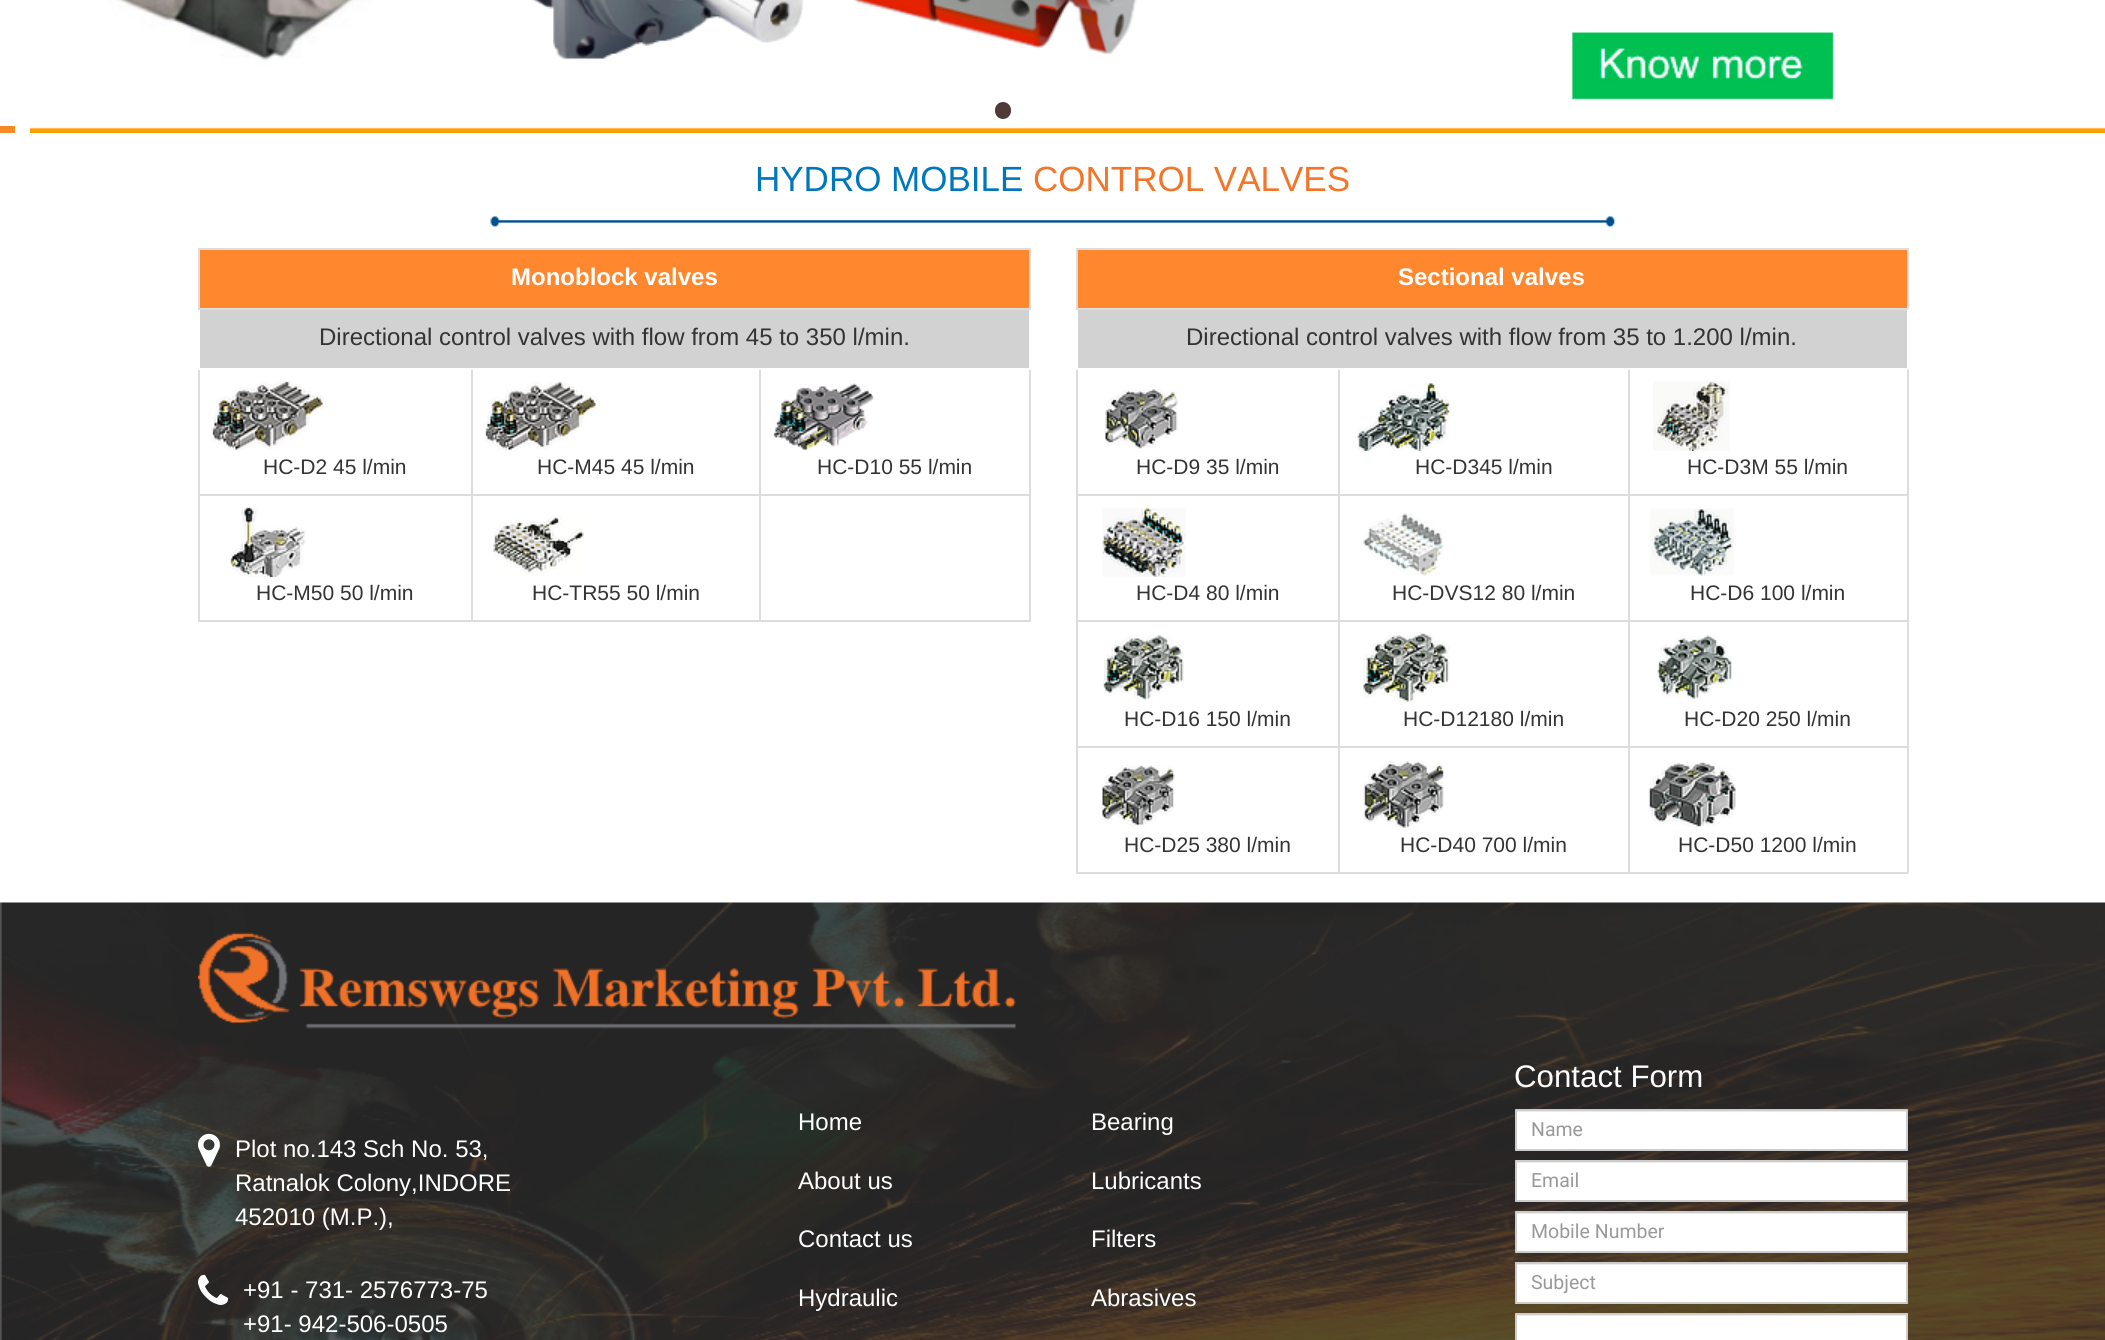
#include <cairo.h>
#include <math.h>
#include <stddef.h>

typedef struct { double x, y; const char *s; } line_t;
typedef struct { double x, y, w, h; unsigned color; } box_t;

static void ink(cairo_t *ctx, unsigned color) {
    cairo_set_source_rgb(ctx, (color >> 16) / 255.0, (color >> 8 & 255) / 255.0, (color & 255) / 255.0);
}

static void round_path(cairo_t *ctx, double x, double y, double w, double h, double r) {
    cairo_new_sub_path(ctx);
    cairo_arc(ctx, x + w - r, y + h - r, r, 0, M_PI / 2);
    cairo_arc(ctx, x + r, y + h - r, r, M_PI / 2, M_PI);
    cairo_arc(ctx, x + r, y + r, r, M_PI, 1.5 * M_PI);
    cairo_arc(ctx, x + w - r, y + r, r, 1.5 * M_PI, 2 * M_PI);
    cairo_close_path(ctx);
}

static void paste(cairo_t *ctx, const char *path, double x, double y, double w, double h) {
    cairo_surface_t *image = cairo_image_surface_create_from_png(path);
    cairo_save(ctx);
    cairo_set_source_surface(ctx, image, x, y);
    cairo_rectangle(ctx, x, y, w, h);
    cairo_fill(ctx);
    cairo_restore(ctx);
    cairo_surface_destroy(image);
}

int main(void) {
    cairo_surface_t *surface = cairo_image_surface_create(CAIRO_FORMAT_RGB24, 2105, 1340);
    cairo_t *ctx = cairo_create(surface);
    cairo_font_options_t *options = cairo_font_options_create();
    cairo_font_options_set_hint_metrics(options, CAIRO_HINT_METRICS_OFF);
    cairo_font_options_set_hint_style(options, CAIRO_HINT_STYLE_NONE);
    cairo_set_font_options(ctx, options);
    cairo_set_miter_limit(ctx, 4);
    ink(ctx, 0xFFFFFF);
    cairo_paint(ctx);
    ink(ctx, 0xF68826);
    cairo_rectangle(ctx, 0, 126, 15, 7);
    cairo_fill(ctx);
    paste(ctx, "media/1.png", 30, 0, 2075, 133);
    ink(ctx, 0x503939);
    round_path(ctx, 995, 102, 16, 17, 8);
    cairo_fill(ctx);
    cairo_select_font_face(ctx, "Liberation Sans", CAIRO_FONT_SLANT_NORMAL, CAIRO_FONT_WEIGHT_NORMAL);
    cairo_set_font_size(ctx, 35);
    ink(ctx, 0x0077BD);
    cairo_move_to(ctx, 755, 191);
    cairo_show_text(ctx, "HYDRO MOBILE");
    ink(ctx, 0xF2762A);
    cairo_move_to(ctx, 1033, 191);
    cairo_show_text(ctx, "CONTROL VALVES");
    paste(ctx, "media/2.png", 490, 216, 1125, 11);
    {
        static const box_t items[] = {
            {198, 248, 833, 2, 0xDDDDDD},
            {1029, 370, 2, 251, 0xDDDDDD},
            {198, 620, 833, 2, 0xDDDDDD},
            {198, 248, 2, 373, 0xDDDDDD},
            {200, 250, 829, 58, 0xFF872D},
            {1029, 248, 2, 61, 0xDDDDDD},
            {471, 494, 290, 2, 0xDDDDDD},
            {471, 494, 2, 127, 0xDDDDDD},
            {198, 494, 275, 2, 0xDDDDDD},
            {471, 368, 2, 127, 0xDDDDDD},
            {759, 494, 2, 127, 0xDDDDDD},
            {759, 494, 272, 2, 0xDDDDDD},
            {759, 368, 2, 127, 0xDDDDDD},
            {198, 368, 563, 2, 0xFFFFFF},
            {198, 308, 2, 61, 0xFFFFFF},
            {198, 308, 833, 2, 0xDDDDDD},
        };
        for (size_t i = 0; i < sizeof items / sizeof *items; i++) {
            ink(ctx, items[i].color);
            cairo_rectangle(ctx, items[i].x, items[i].y, items[i].w, items[i].h);
            cairo_fill(ctx);
        }
    }
    cairo_select_font_face(ctx, "Liberation Sans", CAIRO_FONT_SLANT_NORMAL, CAIRO_FONT_WEIGHT_BOLD);
    cairo_set_font_size(ctx, 24);
    ink(ctx, 0xFFFFFF);
    cairo_move_to(ctx, 511, 285);
    cairo_show_text(ctx, "Monoblock valves");
    ink(ctx, 0xD2D2D2);
    cairo_rectangle(ctx, 200, 310, 829, 58);
    cairo_fill(ctx);
    cairo_select_font_face(ctx, "Liberation Sans", CAIRO_FONT_SLANT_NORMAL, CAIRO_FONT_WEIGHT_NORMAL);
    ink(ctx, 0x333333);
    cairo_move_to(ctx, 319, 345);
    cairo_show_text(ctx, "Directional control valves with flow from 45 to 350 l/min.");
    paste(ctx, "media/3.png", 211, 381, 113, 70);
    cairo_set_font_size(ctx, 21);
    cairo_move_to(ctx, 263, 474);
    cairo_show_text(ctx, "HC-D2 45 l/min");
    paste(ctx, "media/4.png", 484, 381, 113, 70);
    cairo_move_to(ctx, 537, 474);
    cairo_show_text(ctx, "HC-M45 45 l/min");
    paste(ctx, "media/5.png", 773, 383, 101, 67);
    cairo_move_to(ctx, 817, 474);
    cairo_show_text(ctx, "HC-D10 55 l/min");
    paste(ctx, "media/6.png", 229, 506, 77, 71);
    cairo_move_to(ctx, 256, 600);
    cairo_show_text(ctx, "HC-M50 50 l/min");
    paste(ctx, "media/7.png", 493, 515, 91, 60);
    cairo_move_to(ctx, 532, 600);
    cairo_show_text(ctx, "HC-TR55 50 l/min");
    {
        static const box_t items[] = {
            {1076, 248, 832, 2, 0xDDDDDD},
            {1907, 369, 2, 504, 0xDDDDDD},
            {1076, 872, 832, 2, 0xDDDDDD},
            {1076, 248, 2, 625, 0xDDDDDD},
            {1078, 250, 829, 58, 0xFF872D},
            {1907, 248, 2, 61, 0xDDDDDD},
            {1628, 494, 280, 2, 0xDDDDDD},
            {1628, 620, 280, 2, 0xDDDDDD},
            {1628, 746, 280, 2, 0xDDDDDD},
            {1628, 746, 2, 127, 0xDDDDDD},
            {1338, 746, 291, 2, 0xDDDDDD},
            {1628, 620, 2, 127, 0xDDDDDD},
            {1338, 620, 291, 2, 0xDDDDDD},
            {1628, 494, 2, 127, 0xDDDDDD},
            {1338, 494, 291, 2, 0xDDDDDD},
            {1338, 746, 2, 127, 0xDDDDDD},
            {1076, 746, 264, 2, 0xDDDDDD},
            {1338, 620, 2, 127, 0xDDDDDD},
            {1076, 620, 264, 2, 0xDDDDDD},
            {1338, 494, 2, 127, 0xDDDDDD},
            {1076, 494, 264, 2, 0xDDDDDD},
            {1338, 368, 2, 127, 0xDDDDDD},
            {1628, 368, 2, 127, 0xDDDDDD},
            {1076, 368, 832, 2, 0xFFFFFF},
            {1076, 308, 2, 61, 0xFFFFFF},
            {1076, 308, 832, 2, 0xDDDDDD},
        };
        for (size_t i = 0; i < sizeof items / sizeof *items; i++) {
            ink(ctx, items[i].color);
            cairo_rectangle(ctx, items[i].x, items[i].y, items[i].w, items[i].h);
            cairo_fill(ctx);
        }
    }
    cairo_select_font_face(ctx, "Liberation Sans", CAIRO_FONT_SLANT_NORMAL, CAIRO_FONT_WEIGHT_BOLD);
    cairo_set_font_size(ctx, 24);
    ink(ctx, 0xFFFFFF);
    cairo_move_to(ctx, 1398, 285);
    cairo_show_text(ctx, "Sectional valves");
    ink(ctx, 0xD2D2D2);
    cairo_rectangle(ctx, 1078, 310, 829, 58);
    cairo_fill(ctx);
    cairo_select_font_face(ctx, "Liberation Sans", CAIRO_FONT_SLANT_NORMAL, CAIRO_FONT_WEIGHT_NORMAL);
    ink(ctx, 0x333333);
    cairo_move_to(ctx, 1186, 345);
    cairo_show_text(ctx, "Directional control valves with flow from 35 to 1.200 l/min.");
    paste(ctx, "media/8.png", 1104, 389, 74, 60);
    cairo_set_font_size(ctx, 21);
    cairo_move_to(ctx, 1136, 474);
    cairo_show_text(ctx, "HC-D9 35 l/min");
    paste(ctx, "media/9.png", 1357, 383, 94, 68);
    cairo_move_to(ctx, 1415, 474);
    cairo_show_text(ctx, "HC-D345 l/min");
    paste(ctx, "media/10.png", 1653, 380, 77, 71);
    cairo_move_to(ctx, 1687, 474);
    cairo_show_text(ctx, "HC-D3M 55 l/min");
    paste(ctx, "media/11.png", 1101, 507, 85, 70);
    cairo_move_to(ctx, 1136, 600);
    cairo_show_text(ctx, "HC-D4 80 l/min");
    paste(ctx, "media/12.png", 1363, 513, 81, 63);
    cairo_move_to(ctx, 1392, 600);
    cairo_show_text(ctx, "HC-DVS12 80 l/min");
    paste(ctx, "media/13.png", 1650, 508, 84, 68);
    cairo_move_to(ctx, 1690, 600);
    cairo_show_text(ctx, "HC-D6 100 l/min");
    paste(ctx, "media/14.png", 1103, 635, 81, 66);
    cairo_move_to(ctx, 1124, 726);
    cairo_show_text(ctx, "HC-D16 150 l/min");
    paste(ctx, "media/15.png", 1362, 632, 88, 71);
    cairo_move_to(ctx, 1403, 726);
    cairo_show_text(ctx, "HC-D12180 l/min");
    paste(ctx, "media/16.png", 1656, 635, 76, 64);
    cairo_move_to(ctx, 1684, 726);
    cairo_show_text(ctx, "HC-D20 250 l/min");
    paste(ctx, "media/17.png", 1101, 765, 74, 62);
    cairo_move_to(ctx, 1124, 852);
    cairo_show_text(ctx, "HC-D25 380 l/min");
    paste(ctx, "media/18.png", 1363, 761, 81, 68);
    cairo_move_to(ctx, 1400, 852);
    cairo_show_text(ctx, "HC-D40 700 l/min");
    paste(ctx, "media/19.png", 1648, 762, 88, 65);
    cairo_move_to(ctx, 1678, 852);
    cairo_show_text(ctx, "HC-D50 1200 l/min");
    paste(ctx, "media/20.png", 0, 902, 2105, 438);
    paste(ctx, "media/21.png", 198, 932, 818, 97);
    cairo_set_font_size(ctx, 31.25);
    ink(ctx, 0xFFFFFF);
    cairo_move_to(ctx, 1514, 1087);
    cairo_show_text(ctx, "Contact Form");
    paste(ctx, "media/22.png", 198, 1133, 22, 34);
    cairo_set_font_size(ctx, 24);
    {
        static const line_t items[] = {
            {235, 1157, "Plot no.143 Sch No. 53,"},
            {235, 1191, "Ratnalok Colony,INDORE"},
            {235, 1225, "452010 (M.P.),"},
        };
        for (size_t i = 0; i < sizeof items / sizeof *items; i++) {
            cairo_move_to(ctx, items[i].x, items[i].y);
            cairo_show_text(ctx, items[i].s);
        }
    }
    paste(ctx, "media/23.png", 198, 1274, 31, 31);
    {
        static const line_t items[] = {
            {243, 1298, "+91 - 731- 2576773-75"},
            {243, 1332, "+91- 942-506-0505"},
            {798, 1130, "Home"},
            {798, 1189, "About us"},
            {798, 1247, "Contact us"},
            {798, 1306, "Hydraulic"},
            {1091, 1130, "Bearing"},
            {1091, 1189, "Lubricants"},
            {1091, 1247, "Filters"},
            {1091, 1306, "Abrasives"},
        };
        for (size_t i = 0; i < sizeof items / sizeof *items; i++) {
            cairo_move_to(ctx, items[i].x, items[i].y);
            cairo_show_text(ctx, items[i].s);
        }
    }
    round_path(ctx, 1515, 1109, 393, 42, 1.5);
    cairo_fill(ctx);
    ink(ctx, 0xECECEC);
    cairo_rectangle(ctx, 1517, 1111, 390, 1);
    cairo_fill(ctx);
    round_path(ctx, 1516, 1110, 391, 40, 0.5);
    ink(ctx, 0xCCCCCC);
    cairo_stroke(ctx);
    cairo_select_font_face(ctx, "Roboto", CAIRO_FONT_SLANT_NORMAL, CAIRO_FONT_WEIGHT_NORMAL);
    cairo_set_font_size(ctx, 19.5);
    ink(ctx, 0x999999);
    cairo_move_to(ctx, 1531, 1136);
    cairo_show_text(ctx, "Name");
    ink(ctx, 0xFFFFFF);
    round_path(ctx, 1515, 1160, 393, 42, 1.5);
    cairo_fill(ctx);
    ink(ctx, 0xECECEC);
    cairo_rectangle(ctx, 1517, 1162, 390, 1);
    cairo_fill(ctx);
    round_path(ctx, 1516, 1161, 391, 40, 0.5);
    ink(ctx, 0xCCCCCC);
    cairo_stroke(ctx);
    ink(ctx, 0x999999);
    cairo_move_to(ctx, 1531, 1187);
    cairo_show_text(ctx, "Email");
    ink(ctx, 0xFFFFFF);
    round_path(ctx, 1515, 1211, 393, 42, 1.5);
    cairo_fill(ctx);
    ink(ctx, 0xECECEC);
    cairo_rectangle(ctx, 1517, 1213, 390, 1);
    cairo_fill(ctx);
    round_path(ctx, 1516, 1212, 391, 40, 0.5);
    ink(ctx, 0xCCCCCC);
    cairo_stroke(ctx);
    ink(ctx, 0x999999);
    cairo_move_to(ctx, 1531, 1238);
    cairo_show_text(ctx, "Mobile Number");
    ink(ctx, 0xFFFFFF);
    round_path(ctx, 1515, 1262, 393, 42, 1.5);
    cairo_fill(ctx);
    ink(ctx, 0xECECEC);
    cairo_rectangle(ctx, 1517, 1264, 390, 1);
    cairo_fill(ctx);
    round_path(ctx, 1516, 1263, 391, 40, 0.5);
    ink(ctx, 0xCCCCCC);
    cairo_stroke(ctx);
    ink(ctx, 0x999999);
    cairo_move_to(ctx, 1531, 1289);
    cairo_show_text(ctx, "Subject");
    ink(ctx, 0xFFFFFF);
    round_path(ctx, 1515, 1313, 393, 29, 1.5);
    cairo_fill(ctx);
    ink(ctx, 0xECECEC);
    cairo_rectangle(ctx, 1517, 1315, 390, 1);
    cairo_fill(ctx);
    round_path(ctx, 1516, 1314, 391, 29, 0.5);
    ink(ctx, 0xCCCCCC);
    cairo_stroke(ctx);
    cairo_surface_write_to_png(surface, "image.png");
    cairo_font_options_destroy(options);
    cairo_destroy(ctx);
    cairo_surface_destroy(surface);
    return 0;
}
